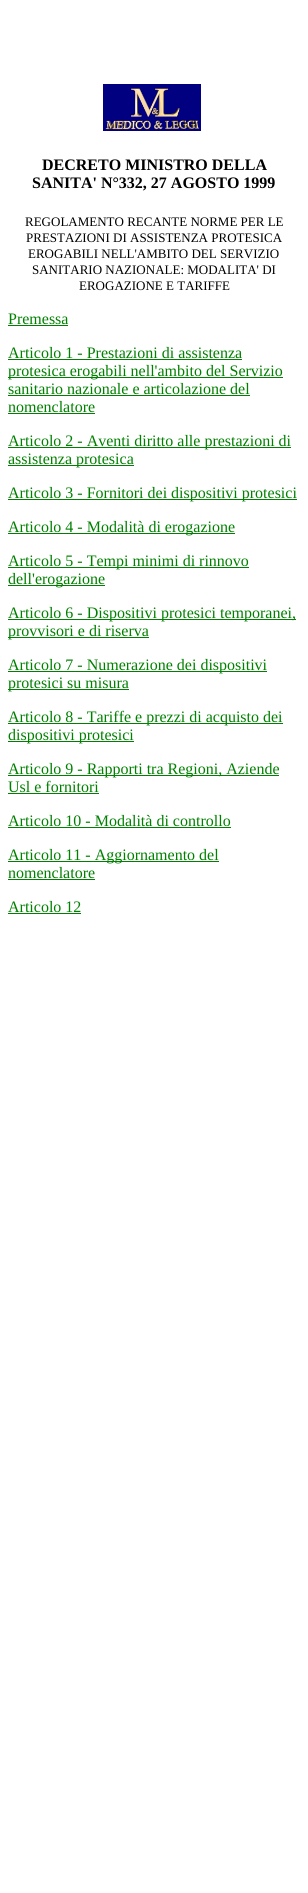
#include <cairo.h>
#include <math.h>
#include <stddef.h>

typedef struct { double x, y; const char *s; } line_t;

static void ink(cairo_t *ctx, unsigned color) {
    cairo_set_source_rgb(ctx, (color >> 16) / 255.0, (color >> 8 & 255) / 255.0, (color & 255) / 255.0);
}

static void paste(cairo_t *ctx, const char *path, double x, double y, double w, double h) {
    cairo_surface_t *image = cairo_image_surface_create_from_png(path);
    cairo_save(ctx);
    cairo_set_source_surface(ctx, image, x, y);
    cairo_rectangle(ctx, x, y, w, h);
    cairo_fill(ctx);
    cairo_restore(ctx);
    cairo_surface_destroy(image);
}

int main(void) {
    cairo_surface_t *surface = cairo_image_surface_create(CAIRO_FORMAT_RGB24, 308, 1893);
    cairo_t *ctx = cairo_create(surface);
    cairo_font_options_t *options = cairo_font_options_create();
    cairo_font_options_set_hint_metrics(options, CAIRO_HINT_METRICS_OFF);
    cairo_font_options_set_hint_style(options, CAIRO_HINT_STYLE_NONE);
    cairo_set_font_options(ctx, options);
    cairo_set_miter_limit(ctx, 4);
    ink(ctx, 0xFFFFFF);
    cairo_paint(ctx);
    paste(ctx, "media/1.png", 103, 84, 98, 47);
    cairo_select_font_face(ctx, "Liberation Serif", CAIRO_FONT_SLANT_NORMAL, CAIRO_FONT_WEIGHT_BOLD);
    cairo_set_font_size(ctx, 16);
    ink(ctx, 0x000000);
    cairo_move_to(ctx, 42, 170);
    cairo_show_text(ctx, "DECRETO MINISTRO DELLA");
    cairo_move_to(ctx, 32, 188);
    cairo_show_text(ctx, "SANITA' N°332, 27 AGOSTO 1999");
    cairo_select_font_face(ctx, "Liberation Serif", CAIRO_FONT_SLANT_NORMAL, CAIRO_FONT_WEIGHT_NORMAL);
    cairo_set_font_size(ctx, 13);
    {
        static const line_t items[] = {
            {25, 226, "REGOLAMENTO RECANTE NORME PER LE"},
            {26, 242, "PRESTAZIONI DI ASSISTENZA PROTESICA"},
            {28, 258, "EROGABILI NELL'AMBITO DEL SERVIZIO"},
            {32, 274, "SANITARIO NAZIONALE: MODALITA' DI"},
            {79, 290, "EROGAZIONE E TARIFFE"},
        };
        for (size_t i = 0; i < sizeof items / sizeof *items; i++) {
            cairo_move_to(ctx, items[i].x, items[i].y);
            cairo_show_text(ctx, items[i].s);
        }
    }
    cairo_set_font_size(ctx, 16);
    ink(ctx, 0x008000);
    cairo_move_to(ctx, 8, 324);
    cairo_show_text(ctx, "Premessa");
    cairo_rectangle(ctx, 8, 325, 60, 1);
    cairo_fill(ctx);
    cairo_move_to(ctx, 8, 358);
    cairo_show_text(ctx, "Articolo 1 - Prestazioni di assistenza");
    cairo_rectangle(ctx, 8, 359, 234, 1);
    cairo_fill(ctx);
    cairo_rectangle(ctx, 8, 377, 275, 1);
    cairo_fill(ctx);
    cairo_move_to(ctx, 8, 376);
    cairo_show_text(ctx, "protesica erogabili nell'ambito del Servizio");
    cairo_move_to(ctx, 8, 394);
    cairo_show_text(ctx, "sanitario nazionale e articolazione del");
    cairo_rectangle(ctx, 8, 395, 242, 1);
    cairo_fill(ctx);
    cairo_move_to(ctx, 8, 412);
    cairo_show_text(ctx, "nomenclatore");
    cairo_rectangle(ctx, 8, 413, 87, 1);
    cairo_fill(ctx);
    cairo_rectangle(ctx, 8, 447, 283, 1);
    cairo_fill(ctx);
    cairo_move_to(ctx, 8, 446);
    cairo_show_text(ctx, "Articolo 2 - Aventi diritto alle prestazioni di");
    cairo_rectangle(ctx, 8, 465, 126, 1);
    cairo_fill(ctx);
    cairo_move_to(ctx, 8, 464);
    cairo_show_text(ctx, "assistenza protesica");
    cairo_rectangle(ctx, 8, 499, 289, 1);
    cairo_fill(ctx);
    cairo_move_to(ctx, 8, 498);
    cairo_show_text(ctx, "Articolo 3 - Fornitori dei dispositivi protesici");
    cairo_rectangle(ctx, 8, 533, 227, 1);
    cairo_fill(ctx);
    cairo_move_to(ctx, 8, 532);
    cairo_show_text(ctx, "Articolo 4 - Modalità di erogazione");
    cairo_rectangle(ctx, 8, 567, 241, 1);
    cairo_fill(ctx);
    cairo_move_to(ctx, 8, 566);
    cairo_show_text(ctx, "Articolo 5 - Tempi minimi di rinnovo");
    cairo_rectangle(ctx, 8, 585, 97, 1);
    cairo_fill(ctx);
    cairo_move_to(ctx, 8, 584);
    cairo_show_text(ctx, "dell'erogazione");
    cairo_rectangle(ctx, 8, 619, 288, 1);
    cairo_fill(ctx);
    cairo_move_to(ctx, 8, 618);
    cairo_show_text(ctx, "Articolo 6 - Dispositivi protesici temporanei,");
    cairo_rectangle(ctx, 8, 637, 141, 1);
    cairo_fill(ctx);
    cairo_move_to(ctx, 8, 636);
    cairo_show_text(ctx, "provvisori e di riserva");
    cairo_rectangle(ctx, 8, 671, 259, 1);
    cairo_fill(ctx);
    cairo_move_to(ctx, 8, 670);
    cairo_show_text(ctx, "Articolo 7 - Numerazione dei dispositivi");
    cairo_rectangle(ctx, 8, 689, 121, 1);
    cairo_fill(ctx);
    cairo_move_to(ctx, 8, 688);
    cairo_show_text(ctx, "protesici su misura");
    cairo_rectangle(ctx, 8, 723, 275, 1);
    cairo_fill(ctx);
    cairo_move_to(ctx, 8, 722);
    cairo_show_text(ctx, "Articolo 8 - Tariffe e prezzi di acquisto dei");
    cairo_rectangle(ctx, 8, 741, 126, 1);
    cairo_fill(ctx);
    cairo_move_to(ctx, 8, 740);
    cairo_show_text(ctx, "dispositivi protesici");
    cairo_rectangle(ctx, 8, 775, 271, 1);
    cairo_fill(ctx);
    cairo_move_to(ctx, 8, 774);
    cairo_show_text(ctx, "Articolo 9 - Rapporti tra Regioni, Aziende");
    cairo_move_to(ctx, 8, 792);
    cairo_show_text(ctx, "Usl e fornitori");
    cairo_rectangle(ctx, 8, 793, 91, 1);
    cairo_fill(ctx);
    cairo_move_to(ctx, 8, 826);
    cairo_show_text(ctx, "Articolo 10 - Modalità di controllo");
    cairo_rectangle(ctx, 8, 827, 223, 1);
    cairo_fill(ctx);
    cairo_rectangle(ctx, 8, 861, 211, 1);
    cairo_fill(ctx);
    cairo_move_to(ctx, 8, 860);
    cairo_show_text(ctx, "Articolo 11 - Aggiornamento del");
    cairo_move_to(ctx, 8, 878);
    cairo_show_text(ctx, "nomenclatore");
    cairo_rectangle(ctx, 8, 879, 87, 1);
    cairo_fill(ctx);
    cairo_move_to(ctx, 8, 912);
    cairo_show_text(ctx, "Articolo 12");
    cairo_rectangle(ctx, 8, 913, 73, 1);
    cairo_fill(ctx);
    cairo_surface_write_to_png(surface, "image.png");
    cairo_font_options_destroy(options);
    cairo_destroy(ctx);
    cairo_surface_destroy(surface);
    return 0;
}
